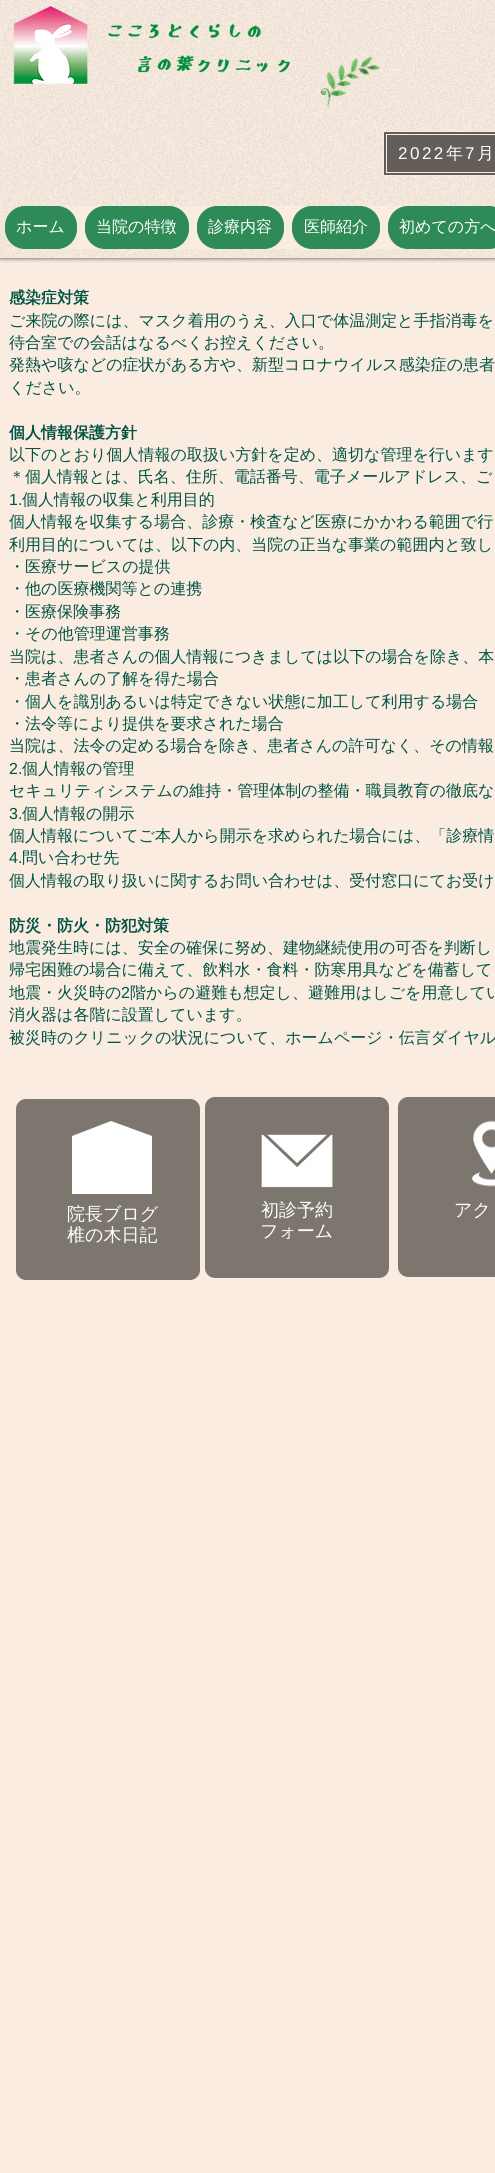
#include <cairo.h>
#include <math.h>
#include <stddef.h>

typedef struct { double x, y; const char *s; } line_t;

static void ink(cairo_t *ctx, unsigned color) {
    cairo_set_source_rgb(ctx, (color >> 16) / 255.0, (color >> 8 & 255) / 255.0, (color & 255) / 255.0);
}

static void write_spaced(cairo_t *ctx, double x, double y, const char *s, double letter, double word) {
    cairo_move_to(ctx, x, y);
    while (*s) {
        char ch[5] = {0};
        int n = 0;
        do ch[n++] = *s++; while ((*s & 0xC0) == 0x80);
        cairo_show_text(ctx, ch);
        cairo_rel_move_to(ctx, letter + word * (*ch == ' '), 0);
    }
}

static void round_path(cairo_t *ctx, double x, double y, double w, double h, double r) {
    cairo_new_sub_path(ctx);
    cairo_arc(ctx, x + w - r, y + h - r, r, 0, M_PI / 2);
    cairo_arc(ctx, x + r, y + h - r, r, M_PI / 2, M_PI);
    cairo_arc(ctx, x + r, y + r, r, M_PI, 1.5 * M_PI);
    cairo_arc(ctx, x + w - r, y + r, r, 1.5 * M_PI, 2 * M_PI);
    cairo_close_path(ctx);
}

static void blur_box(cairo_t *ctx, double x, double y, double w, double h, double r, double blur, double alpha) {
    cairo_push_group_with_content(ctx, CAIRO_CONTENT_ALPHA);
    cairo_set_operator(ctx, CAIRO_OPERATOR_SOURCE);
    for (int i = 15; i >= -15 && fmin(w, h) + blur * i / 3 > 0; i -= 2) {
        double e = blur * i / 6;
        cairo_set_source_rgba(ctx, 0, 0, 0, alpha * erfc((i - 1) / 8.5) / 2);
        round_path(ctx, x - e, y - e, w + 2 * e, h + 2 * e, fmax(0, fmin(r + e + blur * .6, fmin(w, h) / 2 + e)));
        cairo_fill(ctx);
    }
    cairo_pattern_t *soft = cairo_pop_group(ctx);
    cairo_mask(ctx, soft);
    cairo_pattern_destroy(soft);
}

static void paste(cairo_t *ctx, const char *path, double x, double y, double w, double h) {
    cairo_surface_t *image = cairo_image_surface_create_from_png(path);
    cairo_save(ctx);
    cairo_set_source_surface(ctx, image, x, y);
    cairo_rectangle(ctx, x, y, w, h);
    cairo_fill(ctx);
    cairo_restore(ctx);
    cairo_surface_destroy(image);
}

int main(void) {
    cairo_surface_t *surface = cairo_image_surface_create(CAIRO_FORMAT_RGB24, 495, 2173);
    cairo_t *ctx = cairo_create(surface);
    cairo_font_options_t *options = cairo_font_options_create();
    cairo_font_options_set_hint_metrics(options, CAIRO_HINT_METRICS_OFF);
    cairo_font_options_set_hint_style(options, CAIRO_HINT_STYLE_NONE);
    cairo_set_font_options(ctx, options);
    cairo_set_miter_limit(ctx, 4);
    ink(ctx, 0xFAECE1);
    cairo_paint(ctx);
    cairo_save(ctx);
    cairo_rectangle(ctx, 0, 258, 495, 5);
    cairo_clip(ctx);
    ink(ctx, 0x000000);
    blur_box(ctx, 0, 0, 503, 258, 0, 2.5, 0.7);
    cairo_restore(ctx);
    paste(ctx, "media/1.png", 0, 0, 495, 258);
    paste(ctx, "media/2.png", 13, 6, 277, 78);
    paste(ctx, "media/3.png", 320, 56, 60, 52);
    ink(ctx, 0x645E5A);
    cairo_rectangle(ctx, 383.5, 131.5, 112, 44);
    cairo_fill_preserve(ctx);
    ink(ctx, 0xFAECE1);
    cairo_set_line_width(ctx, 1);
    cairo_stroke(ctx);
    cairo_rectangle(ctx, 386.5, 134.5, 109, 38);
    cairo_stroke(ctx);
    cairo_select_font_face(ctx, "Liberation Sans", CAIRO_FONT_SLANT_NORMAL, CAIRO_FONT_WEIGHT_NORMAL);
    cairo_set_font_size(ctx, 17);
    ink(ctx, 0xFFFFFF);
    write_spaced(ctx, 398, 159, "2022", 2.5, 0);
    cairo_select_font_face(ctx, "WenQuanYi Zen Hei Medium", CAIRO_FONT_SLANT_NORMAL, CAIRO_FONT_WEIGHT_NORMAL);
    write_spaced(ctx, 446, 159, "年", 2.5, 0);
    cairo_select_font_face(ctx, "Liberation Sans", CAIRO_FONT_SLANT_NORMAL, CAIRO_FONT_WEIGHT_NORMAL);
    write_spaced(ctx, 465, 159, "7", 2.5, 0);
    cairo_select_font_face(ctx, "WenQuanYi Zen Hei Medium", CAIRO_FONT_SLANT_NORMAL, CAIRO_FONT_WEIGHT_NORMAL);
    write_spaced(ctx, 477, 159, "月", 2.5, 0);
    ink(ctx, 0xFAECE1);
    round_path(ctx, 5, 206, 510, 43, 20);
    cairo_fill(ctx);
    ink(ctx, 0x2E8B57);
    round_path(ctx, 5.5, 206.5, 71, 42, 19.5);
    cairo_fill_preserve(ctx);
    cairo_stroke(ctx);
    cairo_set_font_size(ctx, 16);
    ink(ctx, 0xFFFFFF);
    cairo_move_to(ctx, 16, 232);
    cairo_show_text(ctx, "ホーム");
    ink(ctx, 0x2E8B57);
    round_path(ctx, 85.5, 206.5, 103, 42, 19.5);
    cairo_fill_preserve(ctx);
    cairo_stroke(ctx);
    ink(ctx, 0xFFFFFF);
    cairo_move_to(ctx, 96, 232);
    cairo_show_text(ctx, "当院の特徴");
    ink(ctx, 0x2E8B57);
    round_path(ctx, 197.5, 206.5, 86, 42, 19.5);
    cairo_fill_preserve(ctx);
    cairo_stroke(ctx);
    ink(ctx, 0xFFFFFF);
    cairo_move_to(ctx, 208, 232);
    cairo_show_text(ctx, "診療内容");
    ink(ctx, 0x2E8B57);
    round_path(ctx, 292.5, 206.5, 87, 42, 19.5);
    cairo_fill_preserve(ctx);
    cairo_stroke(ctx);
    ink(ctx, 0xFFFFFF);
    cairo_move_to(ctx, 304, 232);
    cairo_show_text(ctx, "医師紹介");
    ink(ctx, 0x2E8B57);
    round_path(ctx, 388.5, 206.5, 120, 42, 19.5);
    cairo_fill_preserve(ctx);
    cairo_stroke(ctx);
    ink(ctx, 0xFFFFFF);
    cairo_move_to(ctx, 399, 232);
    cairo_show_text(ctx, "初めての方へ");
    cairo_select_font_face(ctx, "WenQuanYi Zen Hei", CAIRO_FONT_SLANT_NORMAL, CAIRO_FONT_WEIGHT_BOLD);
    ink(ctx, 0x015243);
    cairo_move_to(ctx, 9, 303);
    cairo_show_text(ctx, "感染症対策");
    cairo_select_font_face(ctx, "WenQuanYi Zen Hei Medium", CAIRO_FONT_SLANT_NORMAL, CAIRO_FONT_WEIGHT_NORMAL);
    {
        static const line_t items[] = {
            {9, 326, "ご来院の際には、マスク着用のうえ、入口で体温測定と手指消毒を"},
            {9, 348, "待合室での会話はなるべくお控えください。"},
            {9, 370, "発熱や咳などの症状がある方や、新型コロナウイルス感染症の患者"},
            {9, 393, "ください。"},
        };
        for (size_t i = 0; i < sizeof items / sizeof *items; i++) {
            cairo_move_to(ctx, items[i].x, items[i].y);
            cairo_show_text(ctx, items[i].s);
        }
    }
    cairo_select_font_face(ctx, "WenQuanYi Zen Hei", CAIRO_FONT_SLANT_NORMAL, CAIRO_FONT_WEIGHT_BOLD);
    cairo_move_to(ctx, 9, 438);
    cairo_show_text(ctx, "個人情報保護方針");
    cairo_select_font_face(ctx, "WenQuanYi Zen Hei Medium", CAIRO_FONT_SLANT_NORMAL, CAIRO_FONT_WEIGHT_NORMAL);
    cairo_move_to(ctx, 9, 460);
    cairo_show_text(ctx, "以下のとおり個人情報の取扱い方針を定め、適切な管理を行います");
    cairo_move_to(ctx, 9, 482);
    cairo_show_text(ctx, "＊個人情報とは、氏名、住所、電話番号、電子メールアドレス、ご");
    cairo_select_font_face(ctx, "Liberation Sans", CAIRO_FONT_SLANT_NORMAL, CAIRO_FONT_WEIGHT_NORMAL);
    cairo_move_to(ctx, 9, 505);
    cairo_show_text(ctx, "1.");
    cairo_select_font_face(ctx, "WenQuanYi Zen Hei Medium", CAIRO_FONT_SLANT_NORMAL, CAIRO_FONT_WEIGHT_NORMAL);
    {
        static const line_t items[] = {
            {22, 505, "個人情報の収集と利用目的"},
            {9, 527, "個人情報を収集する場合、診療・検査など医療にかかわる範囲で行"},
            {9, 550, "利用目的については、以下の内、当院の正当な事業の範囲内と致し"},
            {9, 572, "・医療サービスの提供"},
            {9, 594, "・他の医療機関等との連携"},
            {9, 617, "・医療保険事務"},
            {9, 639, "・その他管理運営事務"},
            {9, 662, "当院は、患者さんの個人情報につきましては以下の場合を除き、本"},
            {9, 684, "・患者さんの了解を得た場合"},
            {9, 707, "・個人を識別あるいは特定できない状態に加工して利用する場合"},
            {9, 729, "・法令等により提供を要求された場合"},
            {9, 751, "当院は、法令の定める場合を除き、患者さんの許可なく、その情報"},
        };
        for (size_t i = 0; i < sizeof items / sizeof *items; i++) {
            cairo_move_to(ctx, items[i].x, items[i].y);
            cairo_show_text(ctx, items[i].s);
        }
    }
    cairo_select_font_face(ctx, "Liberation Sans", CAIRO_FONT_SLANT_NORMAL, CAIRO_FONT_WEIGHT_NORMAL);
    cairo_move_to(ctx, 9, 774);
    cairo_show_text(ctx, "2.");
    cairo_select_font_face(ctx, "WenQuanYi Zen Hei Medium", CAIRO_FONT_SLANT_NORMAL, CAIRO_FONT_WEIGHT_NORMAL);
    cairo_move_to(ctx, 22, 774);
    cairo_show_text(ctx, "個人情報の管理");
    cairo_move_to(ctx, 9, 796);
    cairo_show_text(ctx, "セキュリティシステムの維持・管理体制の整備・職員教育の徹底な");
    cairo_select_font_face(ctx, "Liberation Sans", CAIRO_FONT_SLANT_NORMAL, CAIRO_FONT_WEIGHT_NORMAL);
    cairo_move_to(ctx, 9, 819);
    cairo_show_text(ctx, "3.");
    cairo_select_font_face(ctx, "WenQuanYi Zen Hei Medium", CAIRO_FONT_SLANT_NORMAL, CAIRO_FONT_WEIGHT_NORMAL);
    cairo_move_to(ctx, 22, 819);
    cairo_show_text(ctx, "個人情報の開示");
    cairo_move_to(ctx, 9, 841);
    cairo_show_text(ctx, "個人情報についてご本人から開示を求められた場合には、「診療情");
    cairo_select_font_face(ctx, "Liberation Sans", CAIRO_FONT_SLANT_NORMAL, CAIRO_FONT_WEIGHT_NORMAL);
    cairo_move_to(ctx, 9, 863);
    cairo_show_text(ctx, "4.");
    cairo_select_font_face(ctx, "WenQuanYi Zen Hei Medium", CAIRO_FONT_SLANT_NORMAL, CAIRO_FONT_WEIGHT_NORMAL);
    cairo_move_to(ctx, 22, 863);
    cairo_show_text(ctx, "問い合わせ先");
    cairo_move_to(ctx, 9, 886);
    cairo_show_text(ctx, "個人情報の取り扱いに関するお問い合わせは、受付窓口にてお受け");
    cairo_select_font_face(ctx, "WenQuanYi Zen Hei", CAIRO_FONT_SLANT_NORMAL, CAIRO_FONT_WEIGHT_BOLD);
    cairo_move_to(ctx, 9, 931);
    cairo_show_text(ctx, "防災・防火・防犯対策");
    cairo_select_font_face(ctx, "WenQuanYi Zen Hei Medium", CAIRO_FONT_SLANT_NORMAL, CAIRO_FONT_WEIGHT_NORMAL);
    {
        static const line_t items[] = {
            {9, 953, "地震発生時には、安全の確保に努め、建物継続使用の可否を判断し"},
            {9, 975, "帰宅困難の場合に備えて、飲料水・食料・防寒用具などを備蓄して"},
            {9, 998, "地震・火災時の"},
        };
        for (size_t i = 0; i < sizeof items / sizeof *items; i++) {
            cairo_move_to(ctx, items[i].x, items[i].y);
            cairo_show_text(ctx, items[i].s);
        }
    }
    cairo_select_font_face(ctx, "Liberation Sans", CAIRO_FONT_SLANT_NORMAL, CAIRO_FONT_WEIGHT_NORMAL);
    cairo_move_to(ctx, 121, 998);
    cairo_show_text(ctx, "2");
    cairo_select_font_face(ctx, "WenQuanYi Zen Hei Medium", CAIRO_FONT_SLANT_NORMAL, CAIRO_FONT_WEIGHT_NORMAL);
    {
        static const line_t items[] = {
            {130, 998, "階からの避難も想定し、避難用はしごを用意してい"},
            {9, 1020, "消火器は各階に設置しています。"},
            {9, 1043, "被災時のクリニックの状況について、ホームページ・伝言ダイヤル"},
        };
        for (size_t i = 0; i < sizeof items / sizeof *items; i++) {
            cairo_move_to(ctx, items[i].x, items[i].y);
            cairo_show_text(ctx, items[i].s);
        }
    }
    ink(ctx, 0x7C766F);
    round_path(ctx, 16, 1099, 184, 181, 10);
    cairo_fill(ctx);
    ink(ctx, 0xFFFFFF);
    cairo_new_path(ctx);
    cairo_move_to(ctx, 72, 1136);
    cairo_line_to(ctx, 111, 1121);
    cairo_line_to(ctx, 152, 1136);
    cairo_line_to(ctx, 152, 1194);
    cairo_line_to(ctx, 72, 1194);
    cairo_close_path(ctx);
    cairo_fill(ctx);
    cairo_set_font_size(ctx, 18);
    cairo_move_to(ctx, 67, 1220);
    cairo_show_text(ctx, "院長ブログ");
    cairo_move_to(ctx, 67, 1241);
    cairo_show_text(ctx, "椎の木日記");
    ink(ctx, 0x7C766F);
    round_path(ctx, 205, 1097, 184, 181, 10);
    cairo_fill(ctx);
    paste(ctx, "media/4.png", 261, 1134, 72, 54);
    ink(ctx, 0xFFFFFF);
    cairo_move_to(ctx, 261, 1216);
    cairo_show_text(ctx, "初診予約");
    cairo_move_to(ctx, 260, 1237);
    cairo_show_text(ctx, "フォーム");
    ink(ctx, 0x7C766F);
    round_path(ctx, 398, 1097, 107, 180, 10);
    cairo_fill(ctx);
    paste(ctx, "media/5.png", 472, 1120, 23, 67);
    ink(ctx, 0xFFFFFF);
    cairo_move_to(ctx, 454, 1216);
    cairo_show_text(ctx, "アク");
    cairo_surface_write_to_png(surface, "image.png");
    cairo_font_options_destroy(options);
    cairo_destroy(ctx);
    cairo_surface_destroy(surface);
    return 0;
}
